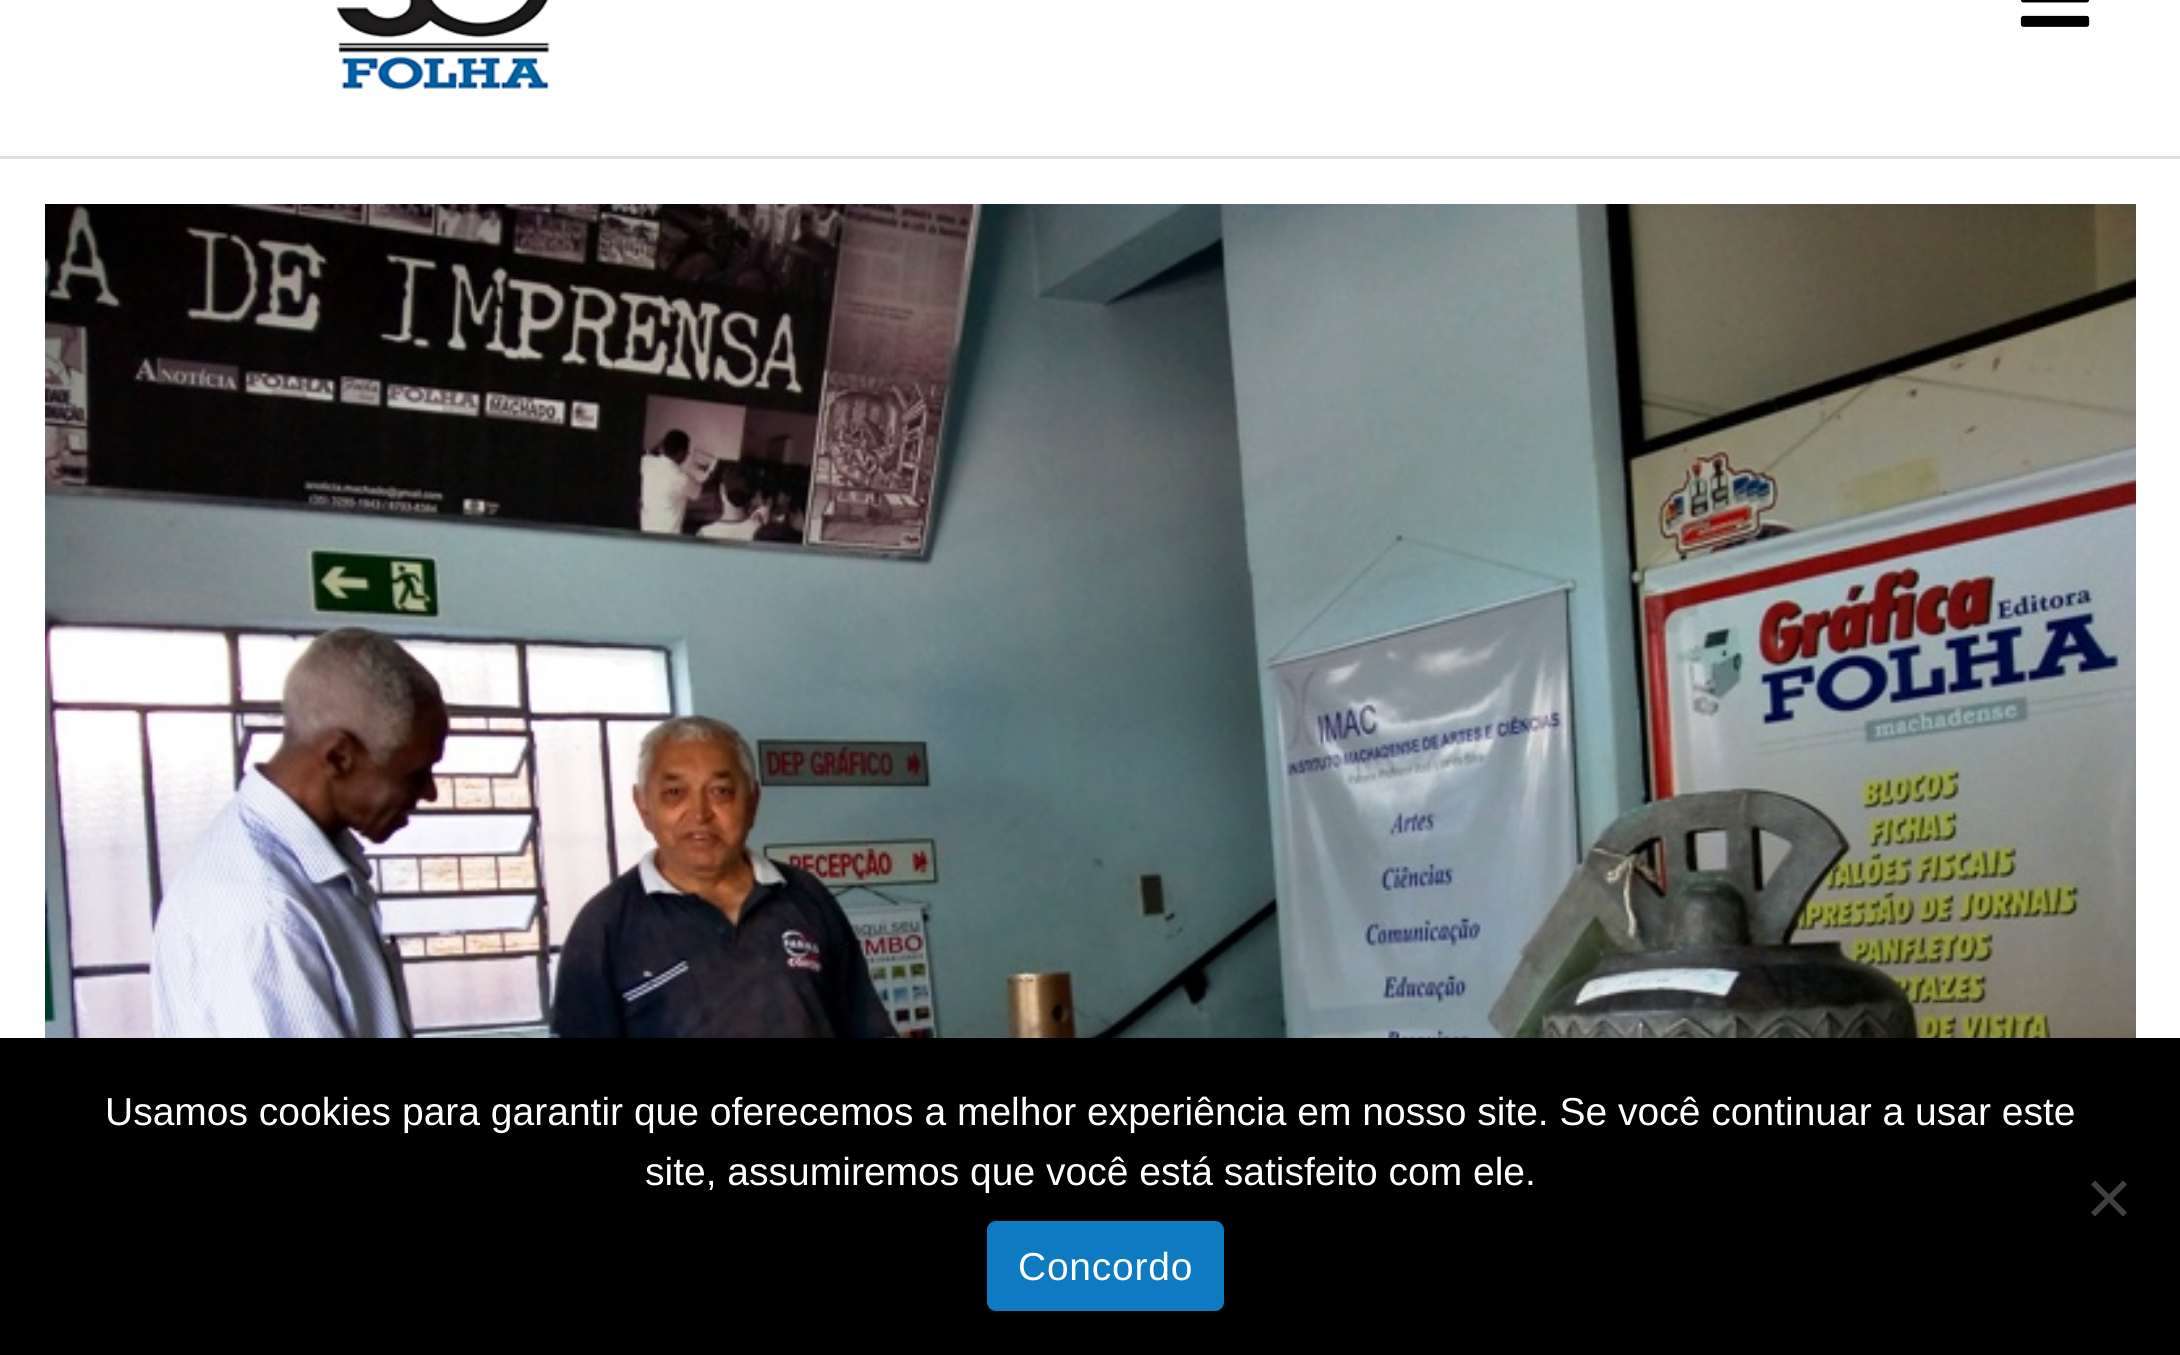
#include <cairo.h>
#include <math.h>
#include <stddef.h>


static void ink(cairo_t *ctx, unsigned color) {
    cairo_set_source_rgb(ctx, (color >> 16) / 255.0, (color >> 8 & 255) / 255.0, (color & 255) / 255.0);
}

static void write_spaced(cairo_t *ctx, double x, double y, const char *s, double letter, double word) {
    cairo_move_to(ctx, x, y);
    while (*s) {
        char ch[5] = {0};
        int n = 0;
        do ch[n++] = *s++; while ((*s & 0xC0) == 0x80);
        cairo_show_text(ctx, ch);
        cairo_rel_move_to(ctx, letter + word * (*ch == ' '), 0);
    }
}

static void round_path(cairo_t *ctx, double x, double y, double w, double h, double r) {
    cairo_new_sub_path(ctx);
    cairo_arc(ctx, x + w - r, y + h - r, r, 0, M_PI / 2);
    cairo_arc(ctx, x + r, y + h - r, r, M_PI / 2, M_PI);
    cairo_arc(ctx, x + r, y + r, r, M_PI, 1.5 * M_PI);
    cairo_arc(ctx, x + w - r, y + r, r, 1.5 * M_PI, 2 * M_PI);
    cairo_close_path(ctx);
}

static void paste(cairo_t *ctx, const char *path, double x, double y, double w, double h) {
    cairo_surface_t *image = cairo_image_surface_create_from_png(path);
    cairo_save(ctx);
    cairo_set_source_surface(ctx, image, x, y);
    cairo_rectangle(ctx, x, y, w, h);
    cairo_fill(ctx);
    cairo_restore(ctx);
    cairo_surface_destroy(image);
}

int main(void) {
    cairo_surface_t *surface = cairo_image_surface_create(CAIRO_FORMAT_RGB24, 2180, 1355);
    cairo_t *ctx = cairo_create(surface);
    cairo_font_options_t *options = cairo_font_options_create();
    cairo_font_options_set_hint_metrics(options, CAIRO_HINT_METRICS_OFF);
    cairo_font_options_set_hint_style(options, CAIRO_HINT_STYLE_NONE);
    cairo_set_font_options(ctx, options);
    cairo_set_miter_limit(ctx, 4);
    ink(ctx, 0xFFFFFF);
    cairo_paint(ctx);
    ink(ctx, 0xDEDEDE);
    cairo_rectangle(ctx, 0, 156, 2180, 3);
    cairo_fill(ctx);
    paste(ctx, "media/1.png", 336, 0, 214, 91);
    paste(ctx, "media/2.png", 2020, 0, 70, 27);
    paste(ctx, "media/3.png", 45, 204, 2091, 834);
    ink(ctx, 0x000000);
    cairo_rectangle(ctx, 0, 1038, 2180, 317);
    cairo_fill(ctx);
    cairo_select_font_face(ctx, "Liberation Sans", CAIRO_FONT_SLANT_NORMAL, CAIRO_FONT_WEIGHT_NORMAL);
    cairo_set_font_size(ctx, 39);
    ink(ctx, 0xFFFFFF);
    cairo_move_to(ctx, 105, 1125);
    cairo_show_text(ctx, "Usamos cookies para garantir que oferecemos a melhor experiência em nosso site. Se você continuar a usar este");
    cairo_move_to(ctx, 645, 1185);
    cairo_show_text(ctx, "site, assumiremos que você está satisfeito com ele.");
    ink(ctx, 0x404040);
    cairo_new_path(ctx);
    cairo_move_to(ctx, 2123, 1180.5);
    cairo_line_to(ctx, 2127, 1184.5);
    cairo_line_to(ctx, 2095, 1216.5);
    cairo_line_to(ctx, 2091, 1212.5);
    cairo_close_path(ctx);
    cairo_fill(ctx);
    cairo_new_path(ctx);
    cairo_move_to(ctx, 2091, 1184.5);
    cairo_line_to(ctx, 2095, 1180.5);
    cairo_line_to(ctx, 2127, 1212.5);
    cairo_line_to(ctx, 2123, 1216.5);
    cairo_close_path(ctx);
    cairo_fill(ctx);
    ink(ctx, 0x0E7AC1);
    round_path(ctx, 987, 1221, 237, 90, 9);
    cairo_fill(ctx);
    ink(ctx, 0xFFFFFF);
    write_spaced(ctx, 1018, 1280, "Concordo", 0.75, 0);
    cairo_surface_write_to_png(surface, "image.png");
    cairo_font_options_destroy(options);
    cairo_destroy(ctx);
    cairo_surface_destroy(surface);
    return 0;
}
